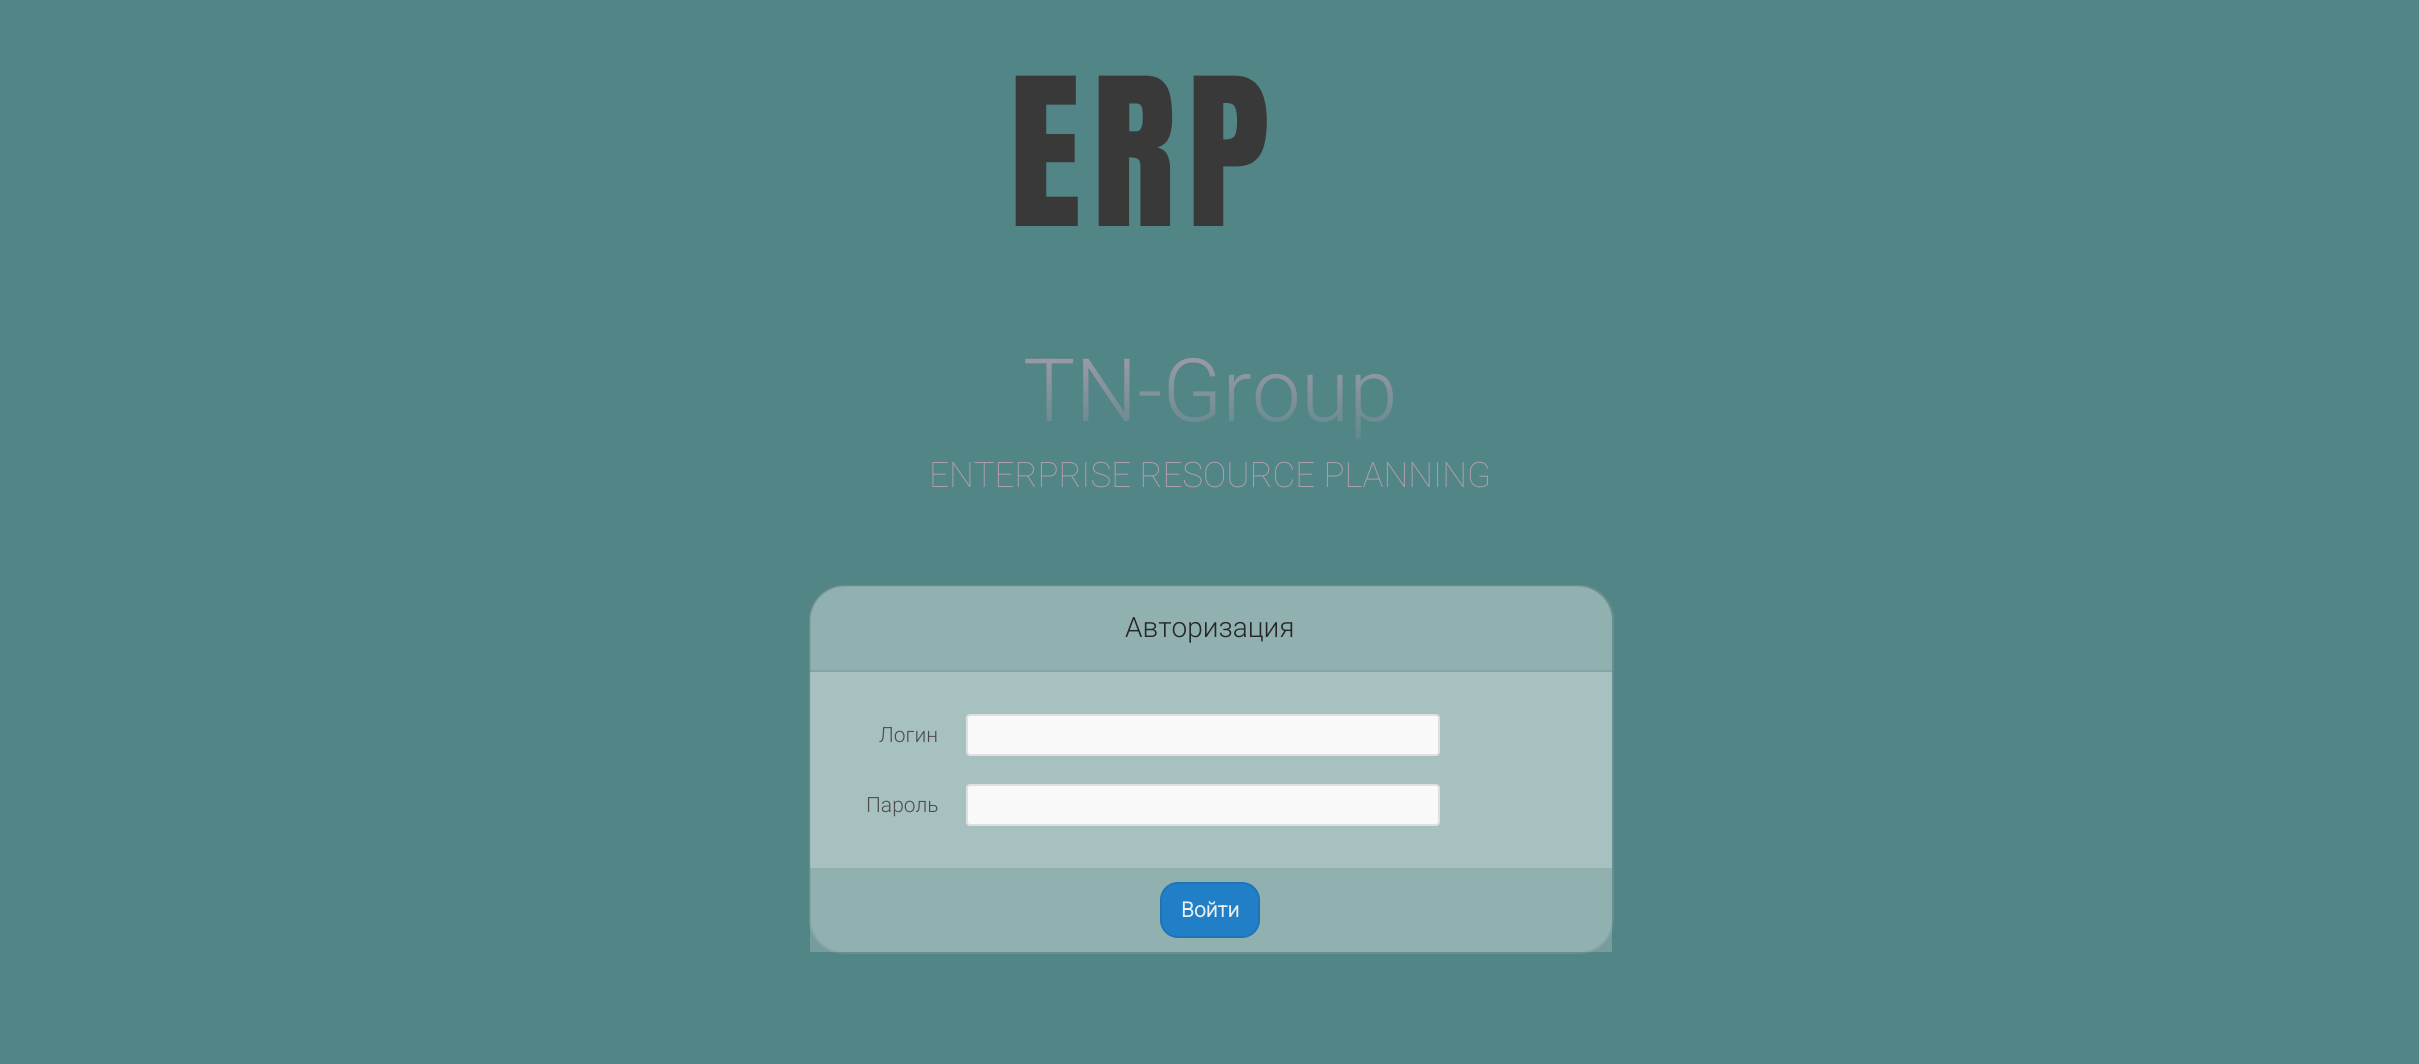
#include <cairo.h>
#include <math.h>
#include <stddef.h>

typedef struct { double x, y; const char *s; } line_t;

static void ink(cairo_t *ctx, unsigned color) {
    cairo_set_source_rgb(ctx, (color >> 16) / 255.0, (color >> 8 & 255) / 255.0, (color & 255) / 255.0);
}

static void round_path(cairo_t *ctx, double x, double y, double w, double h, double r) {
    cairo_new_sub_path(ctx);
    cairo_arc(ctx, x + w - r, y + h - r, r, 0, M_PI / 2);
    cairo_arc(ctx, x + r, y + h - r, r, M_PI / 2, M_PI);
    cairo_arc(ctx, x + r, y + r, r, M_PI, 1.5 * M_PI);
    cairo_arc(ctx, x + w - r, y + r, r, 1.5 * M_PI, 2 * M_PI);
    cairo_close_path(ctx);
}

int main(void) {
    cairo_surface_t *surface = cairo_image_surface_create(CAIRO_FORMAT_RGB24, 2419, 1064);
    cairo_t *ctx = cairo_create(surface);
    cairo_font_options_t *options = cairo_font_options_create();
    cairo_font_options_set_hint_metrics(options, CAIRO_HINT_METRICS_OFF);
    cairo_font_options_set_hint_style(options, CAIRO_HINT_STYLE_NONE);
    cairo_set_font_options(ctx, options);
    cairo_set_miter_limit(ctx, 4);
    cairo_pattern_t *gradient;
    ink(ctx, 0x528586);
    cairo_paint(ctx);
    cairo_select_font_face(ctx, "Anton", CAIRO_FONT_SLANT_NORMAL, CAIRO_FONT_WEIGHT_NORMAL);
    cairo_set_font_size(ctx, 175);
    ink(ctx, 0x393939);
    {
        static const line_t items[] = {
            {1009, 226, "E"},
            {1092, 226, "R"},
            {1187, 226, "P"},
        };
        for (size_t i = 0; i < sizeof items / sizeof *items; i++) {
            cairo_move_to(ctx, items[i].x, items[i].y);
            cairo_show_text(ctx, items[i].s);
        }
    }
    cairo_select_font_face(ctx, "Roboto Light", CAIRO_FONT_SLANT_NORMAL, CAIRO_FONT_WEIGHT_NORMAL);
    cairo_set_font_size(ctx, 87.5);
    gradient = cairo_pattern_create_linear(1210, 326, 1210, 458);
    cairo_pattern_add_color_stop_rgba(gradient, 0, 0.702, 0.624, 0.706, 1);
    cairo_pattern_add_color_stop_rgba(gradient, 1, 0.322, 0.522, 0.525, 1);
    cairo_set_source(ctx, gradient);
    cairo_pattern_destroy(gradient);
    cairo_move_to(ctx, 1023, 421);
    cairo_show_text(ctx, "TN-Group");
    cairo_select_font_face(ctx, "Roboto Thin", CAIRO_FONT_SLANT_NORMAL, CAIRO_FONT_WEIGHT_NORMAL);
    cairo_set_font_size(ctx, 35);
    ink(ctx, 0xB39FB4);
    cairo_move_to(ctx, 929, 487);
    cairo_show_text(ctx, "ENTERPRISE RESOURCE PLANNING");
    cairo_set_source_rgba(ctx, 1, 1, 1, 0.2);
    round_path(ctx, 809, 585, 805, 369, 35);
    cairo_fill(ctx);
    round_path(ctx, 810, 586, 803, 367, 34);
    cairo_set_source_rgba(ctx, 0, 0, 0, 0.1);
    cairo_stroke(ctx);
    cairo_set_source_rgba(ctx, 1, 1, 1, 0.2);
    cairo_new_path(ctx);
    cairo_move_to(ctx, 845, 586);
    cairo_line_to(ctx, 1577, 586);
    cairo_curve_to(ctx, 1596.5, 586, 1612, 601.5, 1612, 621);
    cairo_line_to(ctx, 1612, 672);
    cairo_line_to(ctx, 810, 672);
    cairo_line_to(ctx, 810, 621);
    cairo_curve_to(ctx, 810, 601.5, 825.5, 586, 845, 586);
    cairo_close_path(ctx);
    cairo_fill(ctx);
    cairo_set_source_rgba(ctx, 0, 0, 0, 0.07);
    cairo_rectangle(ctx, 810, 670, 802, 2);
    cairo_fill(ctx);
    cairo_select_font_face(ctx, "Roboto Light", CAIRO_FONT_SLANT_NORMAL, CAIRO_FONT_WEIGHT_NORMAL);
    cairo_set_font_size(ctx, 28);
    ink(ctx, 0x262626);
    cairo_move_to(ctx, 1125, 637);
    cairo_show_text(ctx, "Авторизация");
    cairo_set_source_rgba(ctx, 1, 1, 1, 0.2);
    cairo_rectangle(ctx, 810, 672, 802, 280);
    cairo_fill(ctx);
    cairo_rectangle(ctx, 810, 672, 802, 196);
    cairo_fill(ctx);
    cairo_set_font_size(ctx, 21);
    ink(ctx, 0x4D4D4D);
    cairo_move_to(ctx, 879, 742);
    cairo_show_text(ctx, "Логин");
    ink(ctx, 0xF9F9F9);
    round_path(ctx, 967, 715, 472, 40, 3);
    cairo_fill_preserve(ctx);
    ink(ctx, 0xDFDFDF);
    cairo_stroke(ctx);
    ink(ctx, 0x4D4D4D);
    cairo_move_to(ctx, 866, 812);
    cairo_show_text(ctx, "Пароль");
    ink(ctx, 0xF9F9F9);
    round_path(ctx, 967, 785, 472, 40, 3);
    cairo_fill_preserve(ctx);
    ink(ctx, 0xDFDFDF);
    cairo_stroke(ctx);
    ink(ctx, 0x217FC8);
    round_path(ctx, 1160, 882, 100, 56, 18);
    cairo_fill(ctx);
    round_path(ctx, 1161, 883, 98, 54, 17);
    cairo_set_source_rgba(ctx, 0.114, 0.137, 0.141, 0.12);
    cairo_stroke(ctx);
    cairo_select_font_face(ctx, "Roboto", CAIRO_FONT_SLANT_NORMAL, CAIRO_FONT_WEIGHT_BOLD);
    ink(ctx, 0xE9EFF0);
    cairo_move_to(ctx, 1181, 917);
    cairo_show_text(ctx, "Войти");
    cairo_surface_write_to_png(surface, "image.png");
    cairo_font_options_destroy(options);
    cairo_destroy(ctx);
    cairo_surface_destroy(surface);
    return 0;
}
